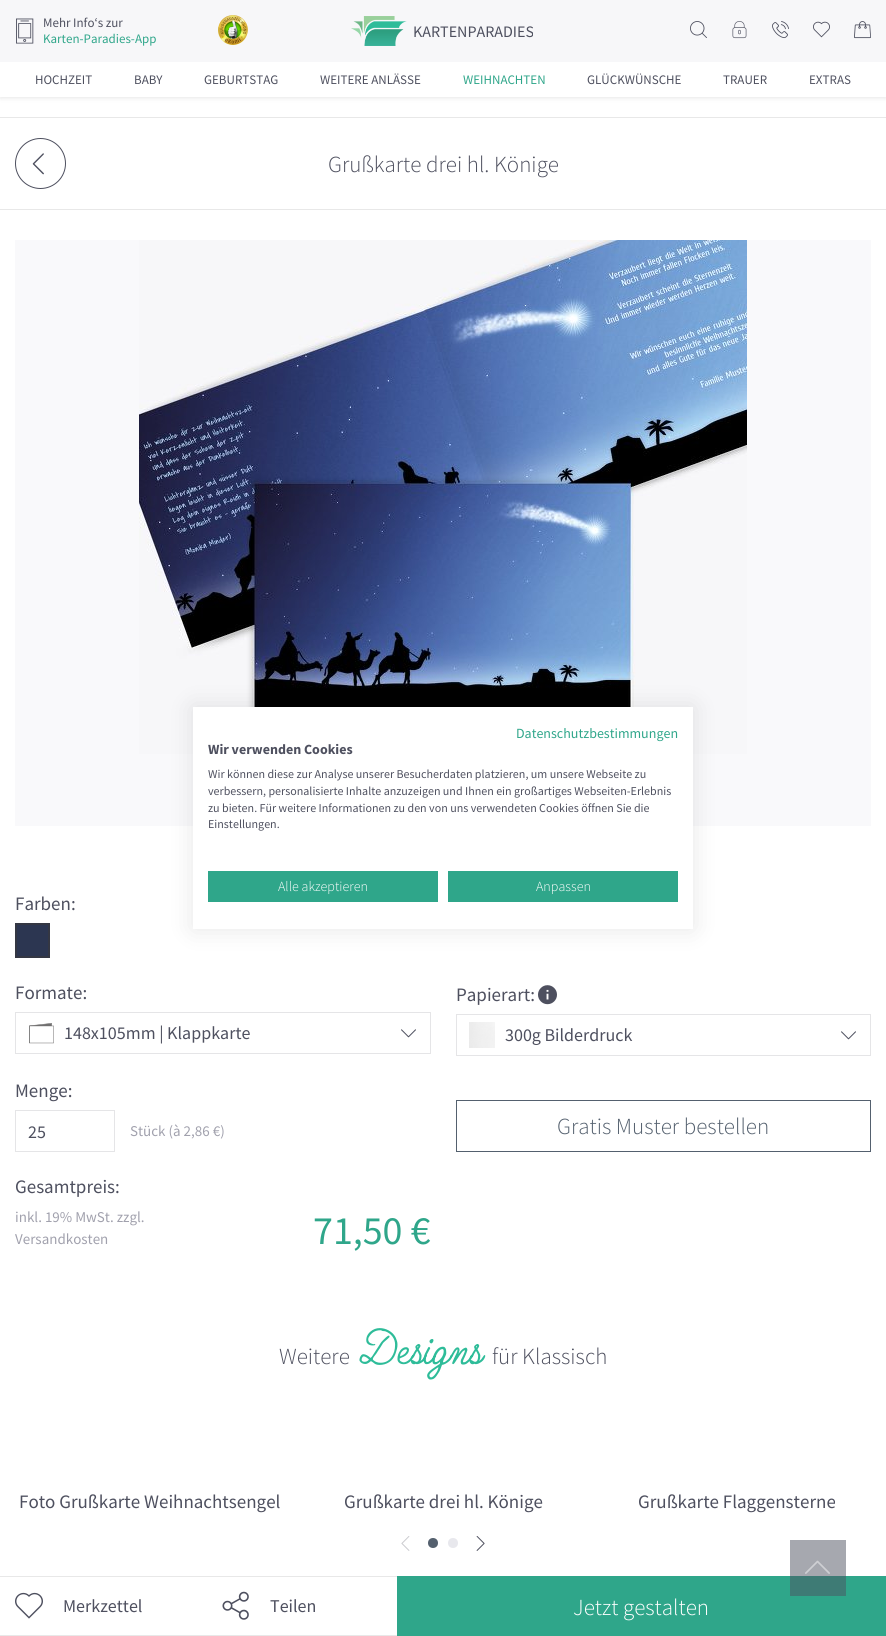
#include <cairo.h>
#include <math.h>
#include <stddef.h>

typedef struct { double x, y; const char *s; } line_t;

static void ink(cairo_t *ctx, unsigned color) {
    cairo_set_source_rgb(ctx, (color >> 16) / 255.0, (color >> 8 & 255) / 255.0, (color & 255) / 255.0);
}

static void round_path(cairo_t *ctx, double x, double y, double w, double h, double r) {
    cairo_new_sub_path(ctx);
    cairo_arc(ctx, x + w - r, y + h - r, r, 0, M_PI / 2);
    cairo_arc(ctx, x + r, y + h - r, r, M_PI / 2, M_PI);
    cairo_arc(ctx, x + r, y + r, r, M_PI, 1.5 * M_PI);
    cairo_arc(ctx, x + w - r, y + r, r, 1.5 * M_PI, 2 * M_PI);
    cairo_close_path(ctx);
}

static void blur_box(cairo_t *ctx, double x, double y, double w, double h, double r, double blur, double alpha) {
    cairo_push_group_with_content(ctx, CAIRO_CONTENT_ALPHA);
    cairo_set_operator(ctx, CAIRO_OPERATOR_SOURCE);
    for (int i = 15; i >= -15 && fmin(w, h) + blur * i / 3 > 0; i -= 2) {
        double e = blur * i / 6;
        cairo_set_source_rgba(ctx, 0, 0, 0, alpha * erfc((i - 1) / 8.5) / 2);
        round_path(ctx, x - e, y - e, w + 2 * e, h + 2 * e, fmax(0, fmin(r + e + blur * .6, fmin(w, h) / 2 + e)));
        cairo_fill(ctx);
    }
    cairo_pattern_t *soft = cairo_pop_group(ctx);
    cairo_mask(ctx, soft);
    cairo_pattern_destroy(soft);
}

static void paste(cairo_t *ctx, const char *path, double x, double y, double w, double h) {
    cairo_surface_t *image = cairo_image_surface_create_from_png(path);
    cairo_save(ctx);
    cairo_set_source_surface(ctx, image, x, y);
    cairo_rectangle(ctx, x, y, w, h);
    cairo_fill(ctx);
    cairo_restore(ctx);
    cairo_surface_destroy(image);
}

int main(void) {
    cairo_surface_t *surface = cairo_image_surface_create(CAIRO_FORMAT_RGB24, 886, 1636);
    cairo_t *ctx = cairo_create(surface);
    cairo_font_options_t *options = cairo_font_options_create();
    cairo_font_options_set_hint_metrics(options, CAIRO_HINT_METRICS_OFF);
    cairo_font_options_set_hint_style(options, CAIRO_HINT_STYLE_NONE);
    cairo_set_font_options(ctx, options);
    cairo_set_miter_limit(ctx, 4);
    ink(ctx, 0xFFFFFF);
    cairo_paint(ctx);
    ink(ctx, 0xA6A8AF);
    cairo_rectangle(ctx, 790, 1540, 56, 36);
    cairo_fill(ctx);
    ink(ctx, 0x000000);
    blur_box(ctx, 0, 1, 886, 97, 0, 2.5, 0.1);
    ink(ctx, 0xFFFFFF);
    cairo_rectangle(ctx, 0, 62, 886, 35);
    cairo_fill(ctx);
    ink(ctx, 0xF7F7F9);
    cairo_rectangle(ctx, 0, 0, 886, 62);
    cairo_fill(ctx);
    paste(ctx, "media/1.png", 16, 18, 18, 26);
    cairo_select_font_face(ctx, "Source Sans Pro", CAIRO_FONT_SLANT_NORMAL, CAIRO_FONT_WEIGHT_NORMAL);
    cairo_set_font_size(ctx, 13);
    ink(ctx, 0x4E505F);
    cairo_move_to(ctx, 43, 27);
    cairo_show_text(ctx, "Mehr Info‘s zur");
    ink(ctx, 0x2FA68A);
    cairo_move_to(ctx, 43, 43);
    cairo_show_text(ctx, "Karten-Paradies-App");
    paste(ctx, "media/2.png", 218, 15, 30, 30);
    paste(ctx, "media/3.png", 351, 16, 56, 30);
    cairo_set_font_size(ctx, 16);
    ink(ctx, 0x4E505F);
    cairo_move_to(ctx, 413, 37);
    cairo_show_text(ctx, "KARTENPARADIES");
    paste(ctx, "media/4.png", 690, 21, 17, 17);
    paste(ctx, "media/5.png", 732, 21, 15, 18);
    paste(ctx, "media/6.png", 772, 21, 17, 18);
    paste(ctx, "media/7.png", 813, 21, 17, 17);
    paste(ctx, "media/8.png", 854, 21, 17, 18);
    cairo_set_font_size(ctx, 13);
    {
        static const line_t items[] = {
            {35, 84, "HOCHZEIT"},
            {134, 84, "BABY"},
            {204, 84, "GEBURTSTAG"},
            {320, 84, "WEITERE ANLÄSSE"},
        };
        for (size_t i = 0; i < sizeof items / sizeof *items; i++) {
            cairo_move_to(ctx, items[i].x, items[i].y);
            cairo_show_text(ctx, items[i].s);
        }
    }
    ink(ctx, 0x2FA68A);
    cairo_move_to(ctx, 463, 84);
    cairo_show_text(ctx, "WEIHNACHTEN");
    ink(ctx, 0x4E505F);
    {
        static const line_t items[] = {
            {587, 84, "GLÜCKWÜNSCHE"},
            {723, 84, "TRAUER"},
            {809, 84, "EXTRAS"},
        };
        for (size_t i = 0; i < sizeof items / sizeof *items; i++) {
            cairo_move_to(ctx, items[i].x, items[i].y);
            cairo_show_text(ctx, items[i].s);
        }
    }
    ink(ctx, 0xE8E8E8);
    cairo_rectangle(ctx, 0, 117, 886, 1);
    cairo_fill(ctx);
    cairo_rectangle(ctx, 0, 209, 886, 1);
    cairo_fill(ctx);
    cairo_arc(ctx, 40.5, 163.5, 25, 0, 2 * M_PI);
    ink(ctx, 0x4E505F);
    cairo_set_line_width(ctx, 1);
    cairo_stroke(ctx);
    paste(ctx, "media/9.png", 32, 153, 12, 22);
    cairo_select_font_face(ctx, "Source Sans Pro Light", CAIRO_FONT_SLANT_NORMAL, CAIRO_FONT_WEIGHT_NORMAL);
    cairo_set_font_size(ctx, 23);
    cairo_move_to(ctx, 328, 172);
    cairo_show_text(ctx, "Grußkarte drei hl. Könige");
    ink(ctx, 0xF9F9FB);
    cairo_rectangle(ctx, 15, 240, 856, 586);
    cairo_fill(ctx);
    paste(ctx, "media/10.png", 139, 240, 608, 514);
    cairo_select_font_face(ctx, "Source Sans Pro", CAIRO_FONT_SLANT_NORMAL, CAIRO_FONT_WEIGHT_NORMAL);
    cairo_set_font_size(ctx, 19);
    ink(ctx, 0x4E505F);
    cairo_move_to(ctx, 15, 910);
    cairo_show_text(ctx, "Farben:");
    ink(ctx, 0x2C3651);
    cairo_rectangle(ctx, 16, 924, 33, 33);
    cairo_fill_preserve(ctx);
    ink(ctx, 0x343743);
    cairo_set_line_width(ctx, 2);
    cairo_stroke(ctx);
    ink(ctx, 0x4E505F);
    cairo_move_to(ctx, 15, 999);
    cairo_show_text(ctx, "Formate:");
    cairo_rectangle(ctx, 15.5, 1012.5, 415, 41);
    ink(ctx, 0xE5E5E7);
    cairo_set_line_width(ctx, 1);
    cairo_stroke(ctx);
    paste(ctx, "media/11.png", 29, 1023, 25, 21);
    cairo_set_font_size(ctx, 18);
    ink(ctx, 0x4E505F);
    cairo_move_to(ctx, 64, 1039);
    cairo_show_text(ctx, "148x105mm | Klappkarte");
    paste(ctx, "media/12.png", 401, 1029, 15, 9);
    cairo_set_font_size(ctx, 19);
    cairo_move_to(ctx, 456, 1001);
    cairo_show_text(ctx, "Papierart:");
    paste(ctx, "media/13.png", 538, 985, 19, 20);
    cairo_rectangle(ctx, 456.5, 1014.5, 414, 41);
    ink(ctx, 0xE5E5E7);
    cairo_stroke(ctx);
    paste(ctx, "media/14.png", 469, 1022, 26, 26);
    cairo_set_font_size(ctx, 18);
    ink(ctx, 0x4E505F);
    cairo_move_to(ctx, 505, 1041);
    cairo_show_text(ctx, "300g Bilderdruck");
    paste(ctx, "media/12.png", 841, 1031, 15, 9);
    cairo_set_font_size(ctx, 19);
    cairo_move_to(ctx, 15, 1097);
    cairo_show_text(ctx, "Menge:");
    cairo_rectangle(ctx, 15.5, 1110.5, 99, 41);
    ink(ctx, 0xE5E5E7);
    cairo_stroke(ctx);
    cairo_set_font_size(ctx, 18);
    ink(ctx, 0x4E505F);
    cairo_move_to(ctx, 28, 1138);
    cairo_show_text(ctx, "25");
    cairo_set_font_size(ctx, 15);
    ink(ctx, 0xA1A1AD);
    cairo_move_to(ctx, 130, 1136);
    cairo_show_text(ctx, "Stück (à 2,86 €)");
    cairo_rectangle(ctx, 456.5, 1100.5, 414, 51);
    ink(ctx, 0x54606E);
    cairo_stroke(ctx);
    cairo_select_font_face(ctx, "Source Sans Pro Light", CAIRO_FONT_SLANT_NORMAL, CAIRO_FONT_WEIGHT_NORMAL);
    cairo_set_font_size(ctx, 23);
    cairo_move_to(ctx, 557, 1134);
    cairo_show_text(ctx, "Gratis Muster bestellen");
    cairo_select_font_face(ctx, "Source Sans Pro", CAIRO_FONT_SLANT_NORMAL, CAIRO_FONT_WEIGHT_NORMAL);
    cairo_set_font_size(ctx, 19);
    ink(ctx, 0x4E505F);
    cairo_move_to(ctx, 15, 1193);
    cairo_show_text(ctx, "Gesamtpreis:");
    cairo_set_font_size(ctx, 15);
    ink(ctx, 0xA1A1AD);
    cairo_move_to(ctx, 15, 1222);
    cairo_show_text(ctx, "inkl. 19% MwSt. zzgl.");
    cairo_move_to(ctx, 15, 1244);
    cairo_show_text(ctx, "Versandkosten");
    cairo_set_font_size(ctx, 40);
    ink(ctx, 0x2FA68A);
    cairo_move_to(ctx, 313, 1244);
    cairo_show_text(ctx, "71,50 €");
    ink(ctx, 0xE8E8E8);
    cairo_rectangle(ctx, 0, 1576, 397, 1);
    cairo_fill(ctx);
    cairo_rectangle(ctx, 0, 1635, 397, 1);
    cairo_fill(ctx);
    paste(ctx, "media/15.png", 15, 1592, 28, 27);
    cairo_set_font_size(ctx, 18);
    ink(ctx, 0x4E505F);
    cairo_move_to(ctx, 63, 1612);
    cairo_show_text(ctx, "Merkzettel");
    paste(ctx, "media/16.png", 222, 1591, 27, 29);
    cairo_move_to(ctx, 270, 1612);
    cairo_show_text(ctx, "Teilen");
    ink(ctx, 0x2FA68A);
    cairo_rectangle(ctx, 397, 1576, 489, 60);
    cairo_fill(ctx);
    ink(ctx, 0x3E7B75);
    cairo_rectangle(ctx, 790, 1576, 56, 20);
    cairo_fill(ctx);
    cairo_select_font_face(ctx, "Source Sans Pro Light", CAIRO_FONT_SLANT_NORMAL, CAIRO_FONT_WEIGHT_NORMAL);
    cairo_set_font_size(ctx, 23);
    ink(ctx, 0xFFFFFF);
    cairo_move_to(ctx, 573, 1615);
    cairo_show_text(ctx, "Jetzt gestalten");
    ink(ctx, 0x4E505F);
    cairo_move_to(ctx, 279, 1364);
    cairo_show_text(ctx, "Weitere");
    cairo_select_font_face(ctx, "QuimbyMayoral", CAIRO_FONT_SLANT_NORMAL, CAIRO_FONT_WEIGHT_NORMAL);
    cairo_set_font_size(ctx, 45);
    ink(ctx, 0x2EBC99);
    cairo_move_to(ctx, 359, 1364);
    cairo_show_text(ctx, "Designs");
    cairo_select_font_face(ctx, "Source Sans Pro Light", CAIRO_FONT_SLANT_NORMAL, CAIRO_FONT_WEIGHT_NORMAL);
    cairo_set_font_size(ctx, 23);
    ink(ctx, 0x4E505F);
    cairo_move_to(ctx, 492, 1364);
    cairo_show_text(ctx, "für Klassisch");
    cairo_select_font_face(ctx, "Source Sans Pro", CAIRO_FONT_SLANT_NORMAL, CAIRO_FONT_WEIGHT_NORMAL);
    cairo_set_font_size(ctx, 19);
    {
        static const line_t items[] = {
            {19, 1508, "Foto Grußkarte Weihnachtsengel"},
            {344, 1508, "Grußkarte drei hl. Könige"},
            {638, 1508, "Grußkarte Flaggensterne"},
        };
        for (size_t i = 0; i < sizeof items / sizeof *items; i++) {
            cairo_move_to(ctx, items[i].x, items[i].y);
            cairo_show_text(ctx, items[i].s);
        }
    }
    paste(ctx, "media/17.png", 401, 1536, 9, 15);
    paste(ctx, "media/18.png", 476, 1536, 9, 15);
    ink(ctx, 0x54606E);
    cairo_arc(ctx, 433, 1543, 5, 0, 2 * M_PI);
    cairo_fill(ctx);
    ink(ctx, 0xE8E8ED);
    cairo_arc(ctx, 453, 1543, 5, 0, 2 * M_PI);
    cairo_fill(ctx);
    paste(ctx, "media/19.png", 805, 1560, 25, 14);
    ink(ctx, 0x000000);
    blur_box(ctx, 193, 707, 500, 222, 0, 12, 0.1);
    ink(ctx, 0xFFFFFF);
    cairo_rectangle(ctx, 193, 707, 500, 222);
    cairo_fill(ctx);
    cairo_set_font_size(ctx, 14);
    ink(ctx, 0x2FA68A);
    cairo_move_to(ctx, 516, 738);
    cairo_show_text(ctx, "Datenschutzbestimmungen");
    cairo_select_font_face(ctx, "Source Sans Pro", CAIRO_FONT_SLANT_NORMAL, CAIRO_FONT_WEIGHT_BOLD);
    ink(ctx, 0x4E505F);
    cairo_move_to(ctx, 208, 754);
    cairo_show_text(ctx, "Wir verwenden Cookies");
    cairo_select_font_face(ctx, "Source Sans Pro", CAIRO_FONT_SLANT_NORMAL, CAIRO_FONT_WEIGHT_NORMAL);
    cairo_set_font_size(ctx, 12);
    {
        static const line_t items[] = {
            {208, 778, "Wir können diese zur Analyse unserer Besucherdaten platzieren, um unsere Webseite zu"},
            {208, 795, "verbessern, personalisierte Inhalte anzuzeigen und Ihnen ein großartiges Webseiten-Erlebnis"},
            {208, 812, "zu bieten. Für weitere Informationen zu den von uns verwendeten Cookies öffnen Sie die"},
            {208, 828, "Einstellungen."},
        };
        for (size_t i = 0; i < sizeof items / sizeof *items; i++) {
            cairo_move_to(ctx, items[i].x, items[i].y);
            cairo_show_text(ctx, items[i].s);
        }
    }
    ink(ctx, 0x2FA68A);
    cairo_rectangle(ctx, 208, 871, 230, 31);
    cairo_fill(ctx);
    cairo_select_font_face(ctx, "Source Sans Pro Light", CAIRO_FONT_SLANT_NORMAL, CAIRO_FONT_WEIGHT_NORMAL);
    cairo_set_font_size(ctx, 14);
    ink(ctx, 0xFFFFFF);
    cairo_move_to(ctx, 278, 891);
    cairo_show_text(ctx, "Alle akzeptieren");
    ink(ctx, 0x2FA68A);
    cairo_rectangle(ctx, 448, 871, 230, 31);
    cairo_fill(ctx);
    ink(ctx, 0xFFFFFF);
    cairo_move_to(ctx, 536, 891);
    cairo_show_text(ctx, "Anpassen");
    cairo_surface_write_to_png(surface, "image.png");
    cairo_font_options_destroy(options);
    cairo_destroy(ctx);
    cairo_surface_destroy(surface);
    return 0;
}
